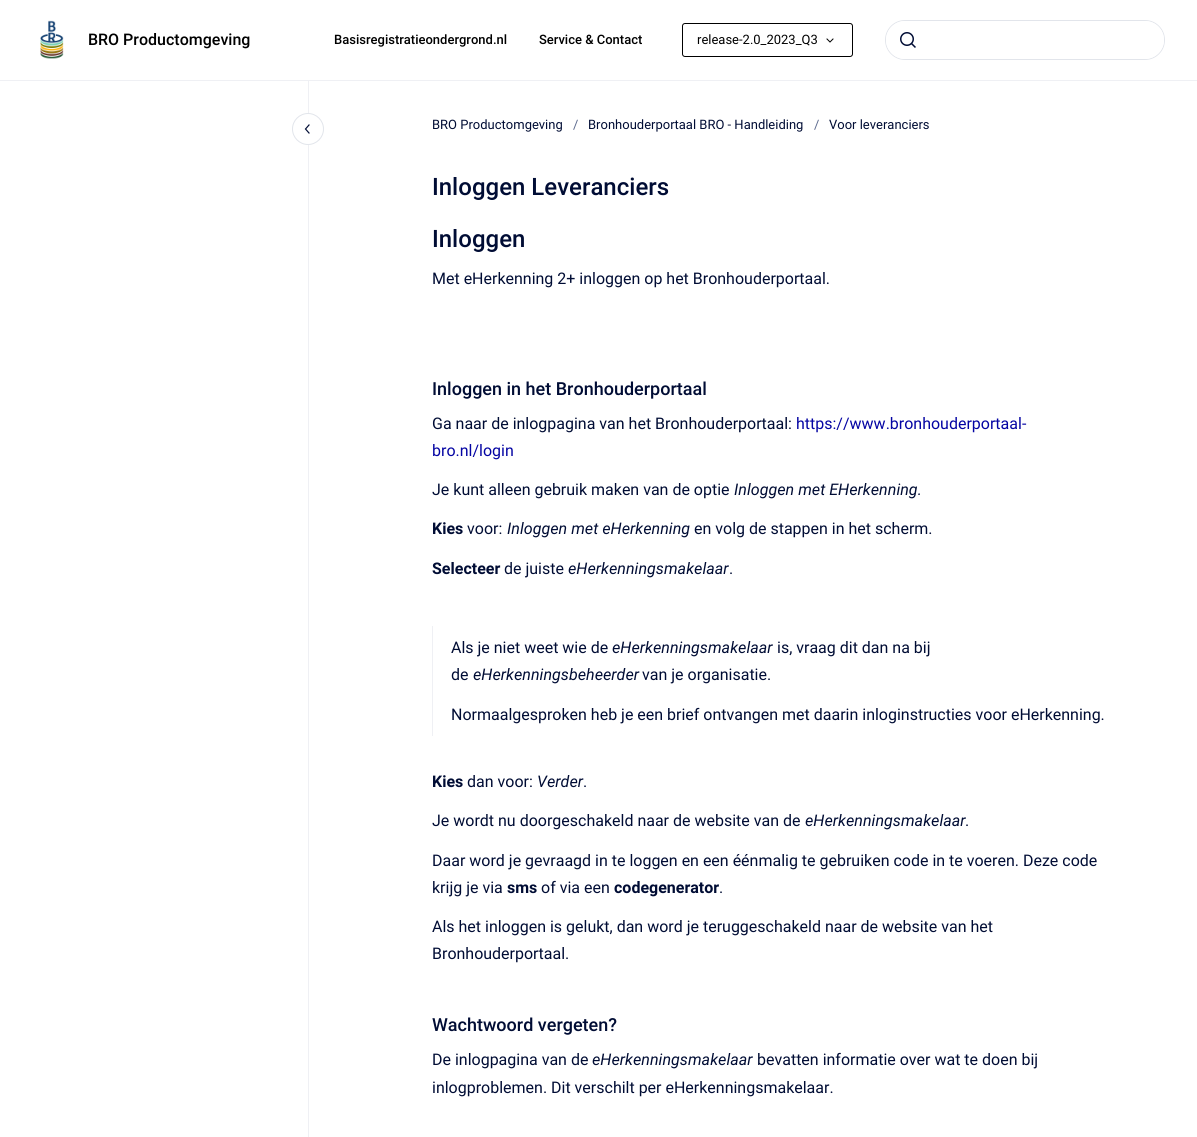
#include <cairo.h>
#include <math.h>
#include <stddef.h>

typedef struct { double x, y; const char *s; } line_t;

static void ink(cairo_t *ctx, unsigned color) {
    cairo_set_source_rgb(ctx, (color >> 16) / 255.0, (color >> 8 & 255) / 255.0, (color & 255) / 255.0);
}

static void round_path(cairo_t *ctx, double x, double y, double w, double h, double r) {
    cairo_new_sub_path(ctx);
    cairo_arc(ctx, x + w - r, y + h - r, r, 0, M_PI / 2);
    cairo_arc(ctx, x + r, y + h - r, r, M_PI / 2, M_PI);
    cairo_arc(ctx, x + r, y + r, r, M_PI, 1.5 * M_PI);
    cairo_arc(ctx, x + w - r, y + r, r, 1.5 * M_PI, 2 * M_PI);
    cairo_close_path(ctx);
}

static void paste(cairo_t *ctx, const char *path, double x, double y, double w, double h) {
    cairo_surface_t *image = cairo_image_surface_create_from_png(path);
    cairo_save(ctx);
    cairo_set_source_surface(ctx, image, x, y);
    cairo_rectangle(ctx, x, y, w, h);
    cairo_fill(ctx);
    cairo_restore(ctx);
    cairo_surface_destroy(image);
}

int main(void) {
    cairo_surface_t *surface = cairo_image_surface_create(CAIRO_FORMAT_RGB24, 1197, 1137);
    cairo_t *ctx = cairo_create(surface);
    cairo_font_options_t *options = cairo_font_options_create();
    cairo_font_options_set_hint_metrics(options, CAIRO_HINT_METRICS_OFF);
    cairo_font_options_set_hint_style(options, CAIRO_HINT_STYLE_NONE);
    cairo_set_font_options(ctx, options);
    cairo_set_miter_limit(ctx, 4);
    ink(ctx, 0xFFFFFF);
    cairo_paint(ctx);
    ink(ctx, 0xEFF0F4);
    cairo_rectangle(ctx, 0, 80, 1197, 1);
    cairo_fill(ctx);
    paste(ctx, "media/1.png", 40, 20, 24, 39);
    cairo_select_font_face(ctx, "Roboto Medium", CAIRO_FONT_SLANT_NORMAL, CAIRO_FONT_WEIGHT_NORMAL);
    cairo_set_font_size(ctx, 16);
    ink(ctx, 0x000000);
    cairo_move_to(ctx, 88, 45);
    cairo_show_text(ctx, "BRO Productomgeving");
    cairo_set_font_size(ctx, 13);
    cairo_move_to(ctx, 334, 44);
    cairo_show_text(ctx, "Basisregistratieondergrond.nl");
    cairo_move_to(ctx, 539, 44);
    cairo_show_text(ctx, "Service & Contact");
    round_path(ctx, 682.5, 23.5, 170, 33, 2.5);
    cairo_set_line_width(ctx, 1);
    cairo_stroke(ctx);
    cairo_select_font_face(ctx, "Roboto", CAIRO_FONT_SLANT_NORMAL, CAIRO_FONT_WEIGHT_NORMAL);
    cairo_move_to(ctx, 697, 44);
    cairo_show_text(ctx, "release-2.0_2023_Q3");
    cairo_new_path(ctx);
    cairo_move_to(ctx, 833, 39);
    cairo_line_to(ctx, 830, 42);
    cairo_line_to(ctx, 827, 39);
    cairo_set_line_cap(ctx, CAIRO_LINE_CAP_SQUARE);
    cairo_stroke(ctx);
    round_path(ctx, 885.5, 20.5, 279, 39, 19.5);
    ink(ctx, 0xE2E5EB);
    cairo_set_line_cap(ctx, CAIRO_LINE_CAP_BUTT);
    cairo_stroke(ctx);
    ink(ctx, 0xFFFFFF);
    round_path(ctx, 886, 21, 278, 38, 19);
    cairo_fill(ctx);
    paste(ctx, "media/2.png", 900, 32, 16, 16);
    ink(ctx, 0xEFF0F4);
    cairo_rectangle(ctx, 308, 81, 1, 1056);
    cairo_fill(ctx);
    ink(ctx, 0xFFFFFF);
    cairo_new_path(ctx);
    cairo_move_to(ctx, 308, 145);
    cairo_curve_to(ctx, 299, 145, 292, 138, 292, 129);
    cairo_curve_to(ctx, 292, 120, 299, 113, 308, 113);
    cairo_curve_to(ctx, 317, 113, 324, 120, 324, 129);
    cairo_curve_to(ctx, 324, 138, 317, 145, 308, 145);
    cairo_close_path(ctx);
    cairo_fill(ctx);
    cairo_new_path(ctx);
    cairo_move_to(ctx, 308, 144.5);
    cairo_curve_to(ctx, 299.5, 144.5, 292.5, 137.5, 292.5, 129);
    cairo_curve_to(ctx, 292.5, 120.5, 299.5, 113.5, 308, 113.5);
    cairo_curve_to(ctx, 316.5, 113.5, 323.5, 120.5, 323.5, 129);
    cairo_curve_to(ctx, 323.5, 137.5, 316.5, 144.5, 308, 144.5);
    cairo_close_path(ctx);
    ink(ctx, 0xE2E5EB);
    cairo_stroke(ctx);
    cairo_new_path(ctx);
    cairo_move_to(ctx, 309, 133);
    cairo_line_to(ctx, 305.5, 129);
    cairo_line_to(ctx, 309, 125);
    ink(ctx, 0x000C34);
    cairo_set_line_width(ctx, 1.2);
    cairo_set_line_cap(ctx, CAIRO_LINE_CAP_SQUARE);
    cairo_stroke(ctx);
    cairo_move_to(ctx, 432, 129);
    cairo_show_text(ctx, "BRO Productomgeving");
    ink(ctx, 0x5D6B8F);
    cairo_move_to(ctx, 573, 129);
    cairo_show_text(ctx, "/");
    ink(ctx, 0x000C34);
    cairo_move_to(ctx, 588, 129);
    cairo_show_text(ctx, "Bronhouderportaal BRO - Handleiding");
    ink(ctx, 0x5D6B8F);
    cairo_move_to(ctx, 814, 129);
    cairo_show_text(ctx, "/");
    ink(ctx, 0x000C34);
    cairo_move_to(ctx, 829, 129);
    cairo_show_text(ctx, "Voor leveranciers");
    cairo_select_font_face(ctx, "Roboto Medium", CAIRO_FONT_SLANT_NORMAL, CAIRO_FONT_WEIGHT_NORMAL);
    cairo_set_font_size(ctx, 24);
    cairo_move_to(ctx, 432, 195);
    cairo_show_text(ctx, "Inloggen Leveranciers");
    cairo_move_to(ctx, 432, 247);
    cairo_show_text(ctx, "Inloggen");
    cairo_select_font_face(ctx, "Roboto", CAIRO_FONT_SLANT_NORMAL, CAIRO_FONT_WEIGHT_NORMAL);
    cairo_set_font_size(ctx, 16);
    cairo_move_to(ctx, 432, 284);
    cairo_show_text(ctx, "Met eHerkenning 2+ inloggen op het Bronhouderportaal.");
    cairo_select_font_face(ctx, "Roboto Medium", CAIRO_FONT_SLANT_NORMAL, CAIRO_FONT_WEIGHT_NORMAL);
    cairo_set_font_size(ctx, 18);
    cairo_move_to(ctx, 432, 395);
    cairo_show_text(ctx, "Inloggen in het Bronhouderportaal");
    cairo_select_font_face(ctx, "Roboto", CAIRO_FONT_SLANT_NORMAL, CAIRO_FONT_WEIGHT_NORMAL);
    cairo_set_font_size(ctx, 16);
    cairo_move_to(ctx, 432, 429);
    cairo_show_text(ctx, "Ga naar de inlogpagina van het Bronhouderportaal:");
    ink(ctx, 0x0404A3);
    cairo_move_to(ctx, 796, 429);
    cairo_show_text(ctx, "https://www.bronhouderportaal-");
    cairo_move_to(ctx, 432, 456);
    cairo_show_text(ctx, "bro.nl/login");
    ink(ctx, 0x000C34);
    cairo_move_to(ctx, 432, 495);
    cairo_show_text(ctx, "Je kunt alleen gebruik maken van de optie");
    cairo_select_font_face(ctx, "Roboto", CAIRO_FONT_SLANT_ITALIC, CAIRO_FONT_WEIGHT_NORMAL);
    cairo_move_to(ctx, 734, 495);
    cairo_show_text(ctx, "Inloggen met EHerkenning.");
    cairo_select_font_face(ctx, "Roboto", CAIRO_FONT_SLANT_NORMAL, CAIRO_FONT_WEIGHT_BOLD);
    cairo_move_to(ctx, 432, 534);
    cairo_show_text(ctx, "Kies");
    cairo_select_font_face(ctx, "Roboto", CAIRO_FONT_SLANT_NORMAL, CAIRO_FONT_WEIGHT_NORMAL);
    cairo_move_to(ctx, 467, 534);
    cairo_show_text(ctx, "voor:");
    cairo_select_font_face(ctx, "Roboto", CAIRO_FONT_SLANT_ITALIC, CAIRO_FONT_WEIGHT_NORMAL);
    cairo_move_to(ctx, 507, 534);
    cairo_show_text(ctx, "Inloggen met eHerkenning");
    cairo_select_font_face(ctx, "Roboto", CAIRO_FONT_SLANT_NORMAL, CAIRO_FONT_WEIGHT_NORMAL);
    cairo_move_to(ctx, 694, 534);
    cairo_show_text(ctx, "en volg de stappen in het scherm.");
    cairo_select_font_face(ctx, "Roboto", CAIRO_FONT_SLANT_NORMAL, CAIRO_FONT_WEIGHT_BOLD);
    cairo_move_to(ctx, 432, 574);
    cairo_show_text(ctx, "Selecteer");
    cairo_select_font_face(ctx, "Roboto", CAIRO_FONT_SLANT_NORMAL, CAIRO_FONT_WEIGHT_NORMAL);
    cairo_move_to(ctx, 504, 574);
    cairo_show_text(ctx, "de juiste");
    cairo_select_font_face(ctx, "Roboto", CAIRO_FONT_SLANT_ITALIC, CAIRO_FONT_WEIGHT_NORMAL);
    cairo_move_to(ctx, 568, 574);
    cairo_show_text(ctx, "eHerkenningsmakelaar");
    cairo_select_font_face(ctx, "Roboto", CAIRO_FONT_SLANT_NORMAL, CAIRO_FONT_WEIGHT_NORMAL);
    cairo_move_to(ctx, 729, 574);
    cairo_show_text(ctx, ".");
    ink(ctx, 0xEFF0F4);
    cairo_rectangle(ctx, 432, 626, 1, 110);
    cairo_fill(ctx);
    ink(ctx, 0x000C34);
    cairo_move_to(ctx, 451, 653);
    cairo_show_text(ctx, "Als je niet weet wie de");
    cairo_select_font_face(ctx, "Roboto", CAIRO_FONT_SLANT_ITALIC, CAIRO_FONT_WEIGHT_NORMAL);
    cairo_move_to(ctx, 612, 653);
    cairo_show_text(ctx, "eHerkenningsmakelaar");
    cairo_select_font_face(ctx, "Roboto", CAIRO_FONT_SLANT_NORMAL, CAIRO_FONT_WEIGHT_NORMAL);
    cairo_move_to(ctx, 777, 653);
    cairo_show_text(ctx, "is, vraag dit dan na bij");
    cairo_move_to(ctx, 451, 680);
    cairo_show_text(ctx, "de");
    cairo_select_font_face(ctx, "Roboto", CAIRO_FONT_SLANT_ITALIC, CAIRO_FONT_WEIGHT_NORMAL);
    cairo_move_to(ctx, 473, 680);
    cairo_show_text(ctx, "eHerkenningsbeheerder");
    cairo_select_font_face(ctx, "Roboto", CAIRO_FONT_SLANT_NORMAL, CAIRO_FONT_WEIGHT_NORMAL);
    cairo_move_to(ctx, 642, 680);
    cairo_show_text(ctx, "van je organisatie.");
    cairo_move_to(ctx, 451, 720);
    cairo_show_text(ctx, "Normaalgesproken heb je een brief ontvangen met daarin inloginstructies voor eHerkenning.");
    cairo_select_font_face(ctx, "Roboto", CAIRO_FONT_SLANT_NORMAL, CAIRO_FONT_WEIGHT_BOLD);
    cairo_move_to(ctx, 432, 787);
    cairo_show_text(ctx, "Kies");
    cairo_select_font_face(ctx, "Roboto", CAIRO_FONT_SLANT_NORMAL, CAIRO_FONT_WEIGHT_NORMAL);
    cairo_move_to(ctx, 467, 787);
    cairo_show_text(ctx, "dan voor:");
    cairo_select_font_face(ctx, "Roboto", CAIRO_FONT_SLANT_ITALIC, CAIRO_FONT_WEIGHT_NORMAL);
    cairo_move_to(ctx, 537, 787);
    cairo_show_text(ctx, "Verder");
    cairo_select_font_face(ctx, "Roboto", CAIRO_FONT_SLANT_NORMAL, CAIRO_FONT_WEIGHT_NORMAL);
    cairo_move_to(ctx, 583, 787);
    cairo_show_text(ctx, ".");
    cairo_move_to(ctx, 432, 826);
    cairo_show_text(ctx, "Je wordt nu doorgeschakeld naar de website van de");
    cairo_select_font_face(ctx, "Roboto", CAIRO_FONT_SLANT_ITALIC, CAIRO_FONT_WEIGHT_NORMAL);
    cairo_move_to(ctx, 805, 826);
    cairo_show_text(ctx, "eHerkenningsmakelaar");
    cairo_select_font_face(ctx, "Roboto", CAIRO_FONT_SLANT_NORMAL, CAIRO_FONT_WEIGHT_NORMAL);
    {
        static const line_t items[] = {
            {965, 826, "."},
            {432, 866, "Daar word je gevraagd in te loggen en een éénmalig te gebruiken code in te voeren. Deze code"},
            {432, 893, "krijg je via"},
        };
        for (size_t i = 0; i < sizeof items / sizeof *items; i++) {
            cairo_move_to(ctx, items[i].x, items[i].y);
            cairo_show_text(ctx, items[i].s);
        }
    }
    cairo_select_font_face(ctx, "Roboto", CAIRO_FONT_SLANT_NORMAL, CAIRO_FONT_WEIGHT_BOLD);
    cairo_move_to(ctx, 507, 893);
    cairo_show_text(ctx, "sms");
    cairo_select_font_face(ctx, "Roboto", CAIRO_FONT_SLANT_NORMAL, CAIRO_FONT_WEIGHT_NORMAL);
    cairo_move_to(ctx, 541, 893);
    cairo_show_text(ctx, "of via een");
    cairo_select_font_face(ctx, "Roboto", CAIRO_FONT_SLANT_NORMAL, CAIRO_FONT_WEIGHT_BOLD);
    cairo_move_to(ctx, 614, 893);
    cairo_show_text(ctx, "codegenerator");
    cairo_select_font_face(ctx, "Roboto", CAIRO_FONT_SLANT_NORMAL, CAIRO_FONT_WEIGHT_NORMAL);
    {
        static const line_t items[] = {
            {719, 893, "."},
            {432, 932, "Als het inloggen is gelukt, dan word je teruggeschakeld naar de website van het"},
            {432, 959, "Bronhouderportaal."},
        };
        for (size_t i = 0; i < sizeof items / sizeof *items; i++) {
            cairo_move_to(ctx, items[i].x, items[i].y);
            cairo_show_text(ctx, items[i].s);
        }
    }
    cairo_select_font_face(ctx, "Roboto Medium", CAIRO_FONT_SLANT_NORMAL, CAIRO_FONT_WEIGHT_NORMAL);
    cairo_set_font_size(ctx, 18);
    cairo_move_to(ctx, 432, 1031);
    cairo_show_text(ctx, "Wachtwoord vergeten?");
    cairo_select_font_face(ctx, "Roboto", CAIRO_FONT_SLANT_NORMAL, CAIRO_FONT_WEIGHT_NORMAL);
    cairo_set_font_size(ctx, 16);
    cairo_move_to(ctx, 432, 1065);
    cairo_show_text(ctx, "De inlogpagina van de");
    cairo_select_font_face(ctx, "Roboto", CAIRO_FONT_SLANT_ITALIC, CAIRO_FONT_WEIGHT_NORMAL);
    cairo_move_to(ctx, 592, 1065);
    cairo_show_text(ctx, "eHerkenningsmakelaar");
    cairo_select_font_face(ctx, "Roboto", CAIRO_FONT_SLANT_NORMAL, CAIRO_FONT_WEIGHT_NORMAL);
    cairo_move_to(ctx, 757, 1065);
    cairo_show_text(ctx, "bevatten informatie over wat te doen bij");
    cairo_move_to(ctx, 432, 1093);
    cairo_show_text(ctx, "inlogproblemen. Dit verschilt per eHerkenningsmakelaar.");
    cairo_surface_write_to_png(surface, "image.png");
    cairo_font_options_destroy(options);
    cairo_destroy(ctx);
    cairo_surface_destroy(surface);
    return 0;
}
